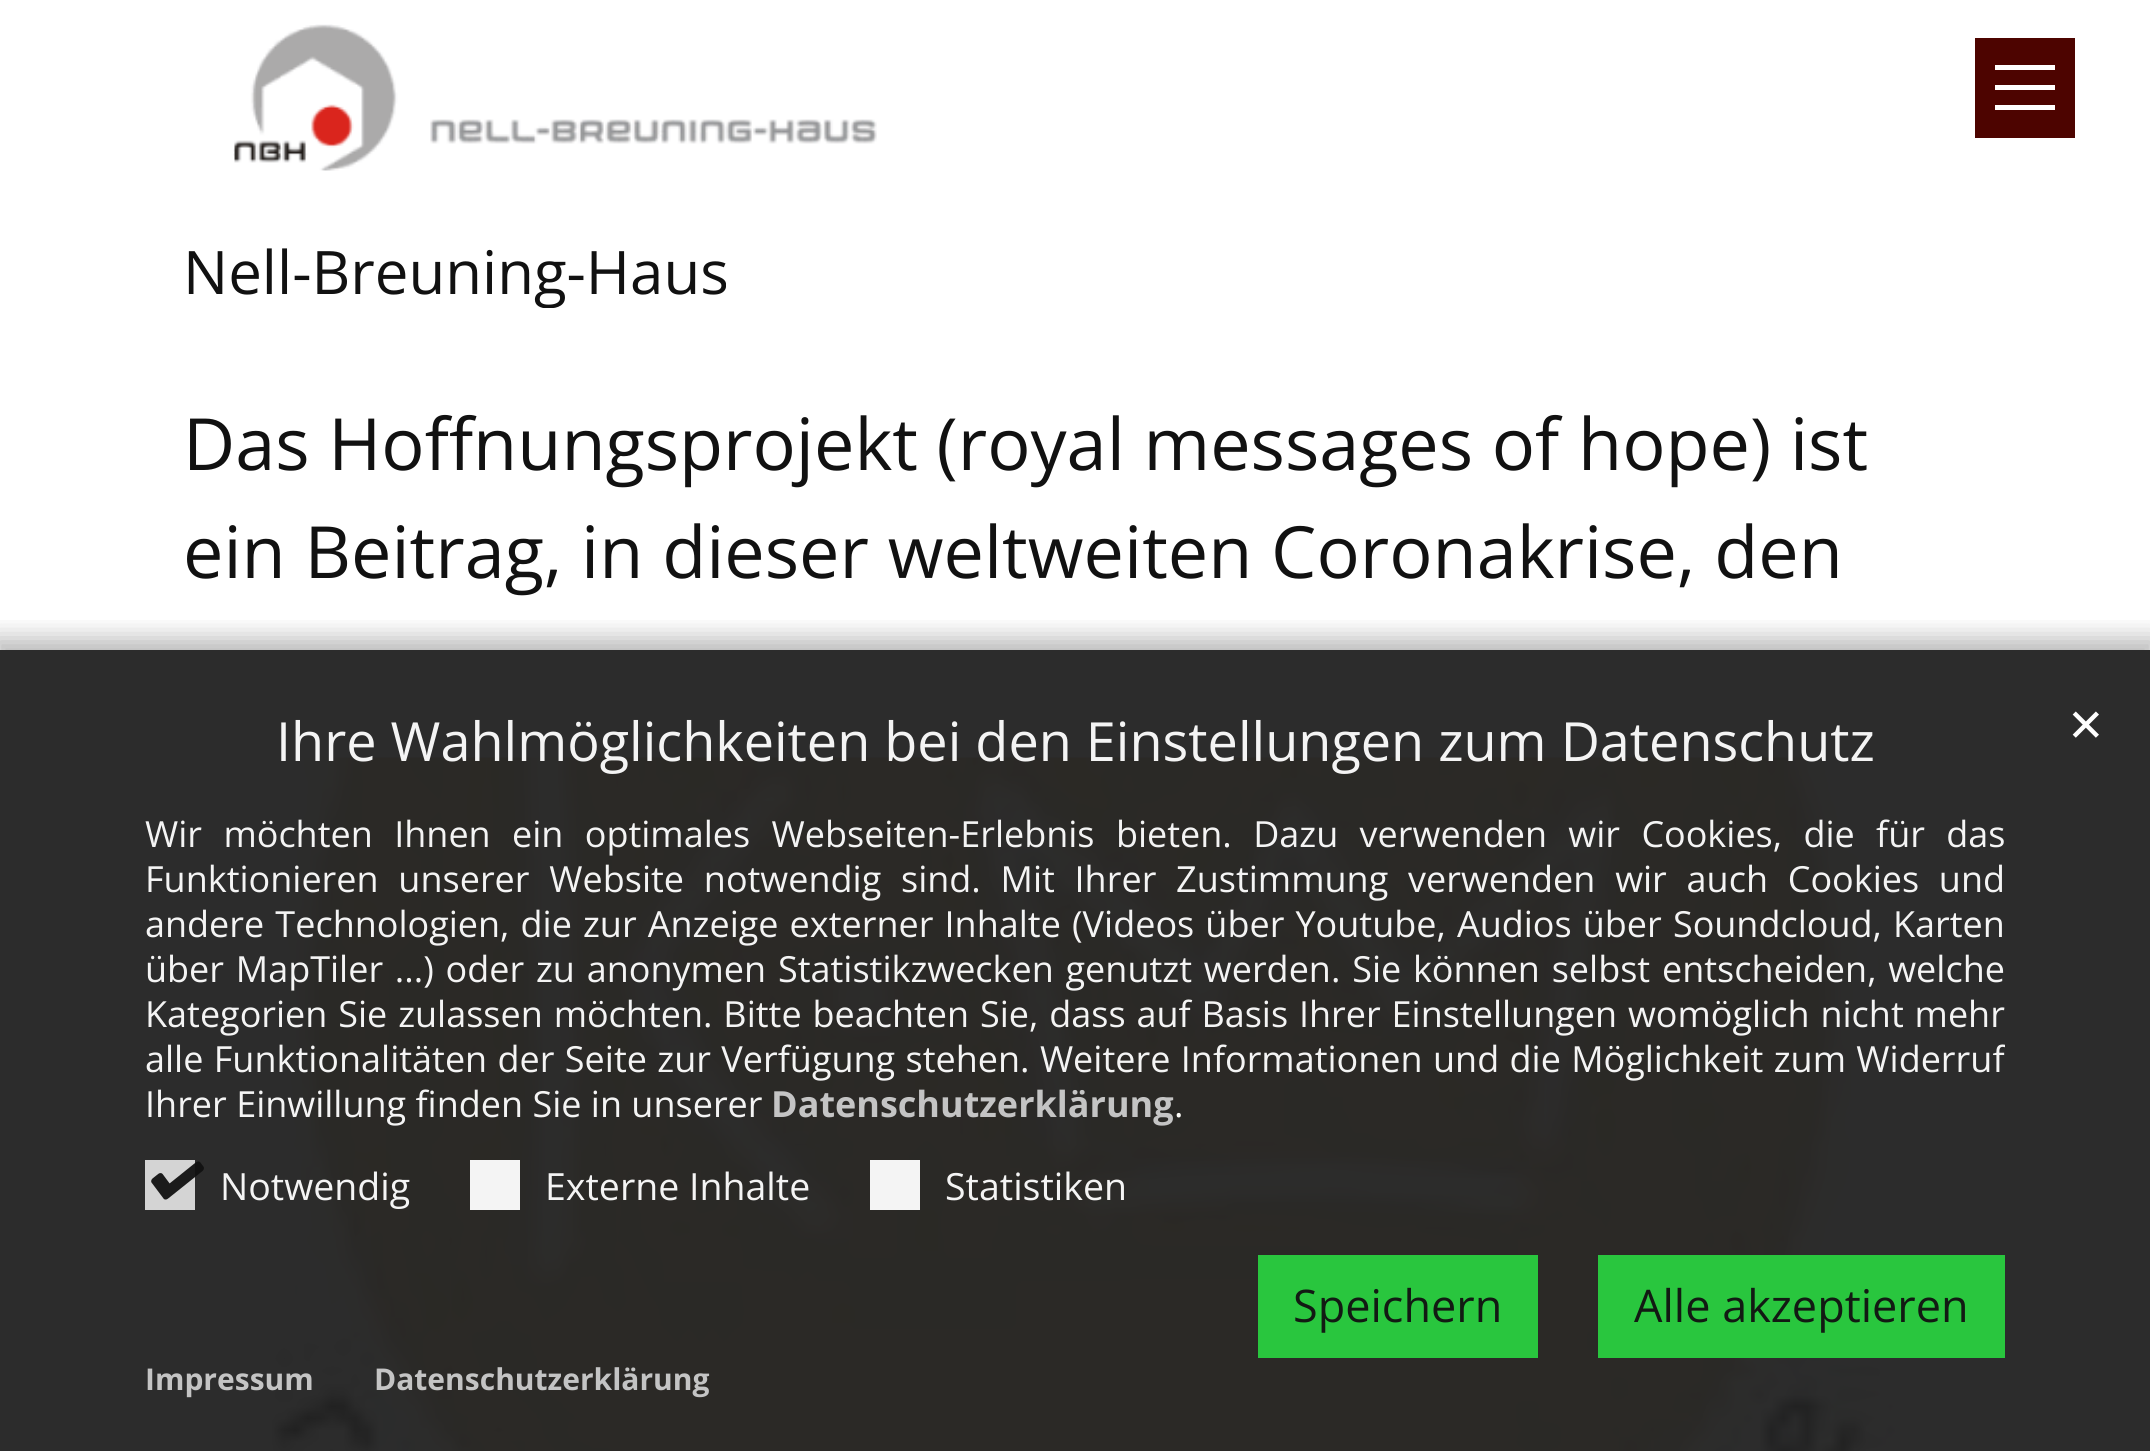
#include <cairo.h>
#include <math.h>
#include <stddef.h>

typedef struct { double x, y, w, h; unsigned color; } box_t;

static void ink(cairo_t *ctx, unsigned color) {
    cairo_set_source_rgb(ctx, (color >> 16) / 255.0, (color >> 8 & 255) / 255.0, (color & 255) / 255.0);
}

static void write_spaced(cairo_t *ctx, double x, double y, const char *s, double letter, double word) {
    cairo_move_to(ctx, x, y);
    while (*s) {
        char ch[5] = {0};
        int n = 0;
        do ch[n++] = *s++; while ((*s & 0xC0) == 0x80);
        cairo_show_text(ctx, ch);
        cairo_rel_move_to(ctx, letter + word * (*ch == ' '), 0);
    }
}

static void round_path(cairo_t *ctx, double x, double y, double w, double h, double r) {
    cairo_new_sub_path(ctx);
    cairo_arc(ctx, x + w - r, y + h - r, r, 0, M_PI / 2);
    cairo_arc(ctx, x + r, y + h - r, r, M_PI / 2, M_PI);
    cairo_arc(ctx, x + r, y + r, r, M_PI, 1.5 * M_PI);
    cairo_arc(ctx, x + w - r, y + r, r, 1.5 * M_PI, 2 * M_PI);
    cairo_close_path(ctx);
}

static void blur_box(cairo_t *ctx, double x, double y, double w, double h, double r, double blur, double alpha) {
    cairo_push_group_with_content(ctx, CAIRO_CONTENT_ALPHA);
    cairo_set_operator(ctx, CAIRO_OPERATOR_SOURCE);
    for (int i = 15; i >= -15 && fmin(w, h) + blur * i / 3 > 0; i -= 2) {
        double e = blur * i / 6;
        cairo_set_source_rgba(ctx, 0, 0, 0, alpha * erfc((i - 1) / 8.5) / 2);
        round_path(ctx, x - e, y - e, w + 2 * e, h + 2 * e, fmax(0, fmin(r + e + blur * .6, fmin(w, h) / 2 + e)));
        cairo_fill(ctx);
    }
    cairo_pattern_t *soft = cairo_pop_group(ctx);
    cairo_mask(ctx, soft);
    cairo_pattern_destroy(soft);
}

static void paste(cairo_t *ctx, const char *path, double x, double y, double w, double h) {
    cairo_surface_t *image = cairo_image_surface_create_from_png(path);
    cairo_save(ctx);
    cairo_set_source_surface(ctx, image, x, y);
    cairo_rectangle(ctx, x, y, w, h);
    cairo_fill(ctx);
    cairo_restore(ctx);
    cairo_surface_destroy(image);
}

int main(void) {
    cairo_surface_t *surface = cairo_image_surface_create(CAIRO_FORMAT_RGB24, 2150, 1451);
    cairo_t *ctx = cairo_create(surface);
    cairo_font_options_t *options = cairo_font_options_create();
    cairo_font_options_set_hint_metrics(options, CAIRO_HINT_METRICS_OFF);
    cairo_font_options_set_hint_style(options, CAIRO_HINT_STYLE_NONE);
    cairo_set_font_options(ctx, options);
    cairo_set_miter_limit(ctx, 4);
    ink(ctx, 0xFFFFFF);
    cairo_paint(ctx);
    {
        static const box_t items[] = {
            {1975, 38, 100, 100, 0x4D0400},
            {1995, 85, 60, 5, 0xFFFFFF},
            {1995, 65, 60, 5, 0xFFFFFF},
            {1995, 105, 60, 5, 0xFFFFFF},
        };
        for (size_t i = 0; i < sizeof items / sizeof *items; i++) {
            ink(ctx, items[i].color);
            cairo_rectangle(ctx, items[i].x, items[i].y, items[i].w, items[i].h);
            cairo_fill(ctx);
        }
    }
    paste(ctx, "media/1.png", 233, 24, 644, 147);
    cairo_save(ctx);
    cairo_rectangle(ctx, 145, 238, 1860, 70);
    cairo_clip(ctx);
    cairo_select_font_face(ctx, "Open Sans", CAIRO_FONT_SLANT_NORMAL, CAIRO_FONT_WEIGHT_NORMAL);
    cairo_set_font_size(ctx, 60);
    ink(ctx, 0x111111);
    cairo_move_to(ctx, 183, 294);
    cairo_show_text(ctx, "Nell-Breuning-Haus");
    cairo_restore(ctx);
    cairo_select_font_face(ctx, "Open Sans", CAIRO_FONT_SLANT_NORMAL, CAIRO_FONT_WEIGHT_NORMAL);
    cairo_set_font_size(ctx, 72);
    ink(ctx, 0x111111);
    cairo_move_to(ctx, 183, 470);
    cairo_show_text(ctx, "Das Hoffnungsprojekt (royal messages of hope) ist");
    cairo_move_to(ctx, 183, 578);
    cairo_show_text(ctx, "ein Beitrag, in dieser weltweiten Coronakrise, den");
    paste(ctx, "media/2.png", 183, 757, 1719, 694);
    cairo_save(ctx);
    cairo_rectangle(ctx, 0, 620, 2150, 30);
    cairo_clip(ctx);
    ink(ctx, 0x000000);
    blur_box(ctx, -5, 638, 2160, 812, 0, 12.5, 0.28);
    cairo_restore(ctx);
    cairo_set_source_rgba(ctx, 0.133, 0.133, 0.133, 0.95);
    cairo_rectangle(ctx, 0, 650, 2150, 801);
    cairo_fill(ctx);
    cairo_set_font_size(ctx, 54);
    ink(ctx, 0xF4F4F4);
    cairo_move_to(ctx, 276, 761);
    cairo_show_text(ctx, "Ihre Wahlmöglichkeiten bei den Einstellungen zum Datenschutz");
    cairo_select_font_face(ctx, "DejaVu Sans", CAIRO_FONT_SLANT_NORMAL, CAIRO_FONT_WEIGHT_NORMAL);
    cairo_set_font_size(ctx, 45);
    ink(ctx, 0xFFFFFF);
    cairo_move_to(ctx, 2067, 741);
    cairo_show_text(ctx, "✕");
    cairo_select_font_face(ctx, "Open Sans", CAIRO_FONT_SLANT_NORMAL, CAIRO_FONT_WEIGHT_NORMAL);
    cairo_set_font_size(ctx, 36);
    ink(ctx, 0xF4F4F4);
    write_spaced(ctx, 145, 847, "Wir möchten Ihnen ein optimales Webseiten-Erlebnis bieten. Dazu verwenden wir Cookies, die für das", 0, 12);
    write_spaced(ctx, 145, 892, "Funktionieren unserer Website notwendig sind. Mit Ihrer Zustimmung verwenden wir auch Cookies und", 0, 10.4);
    write_spaced(ctx, 145, 937, "andere Technologien, die zur Anzeige externer Inhalte (Videos über Youtube, Audios über Soundcloud, Karten", 0, 1.75);
    write_spaced(ctx, 145, 982, "über MapTiler ...) oder zu anonymen Statistikzwecken genutzt werden. Sie können selbst entscheiden, welche", 0, 2.4);
    write_spaced(ctx, 145, 1027, "Kategorien Sie zulassen möchten. Bitte beachten Sie, dass auf Basis Ihrer Einstellungen womöglich nicht mehr", 0, 1.5);
    cairo_save(ctx);
    cairo_rectangle(ctx, 145, 700, 1860, 703);
    cairo_clip(ctx);
    write_spaced(ctx, 145, 1072, "alle Funktionalitäten der Seite zur Verfügung stehen. Weitere Informationen und die Möglichkeit zum Widerruf", 0, 1);
    cairo_restore(ctx);
    cairo_move_to(ctx, 145, 1117);
    cairo_show_text(ctx, "Ihrer Einwillung finden Sie in unserer");
    cairo_select_font_face(ctx, "Open Sans", CAIRO_FONT_SLANT_NORMAL, CAIRO_FONT_WEIGHT_BOLD);
    ink(ctx, 0xC4C4C4);
    cairo_move_to(ctx, 771, 1117);
    cairo_show_text(ctx, "Datenschutzerklärung");
    cairo_select_font_face(ctx, "Open Sans", CAIRO_FONT_SLANT_NORMAL, CAIRO_FONT_WEIGHT_NORMAL);
    ink(ctx, 0xFDFCF8);
    cairo_move_to(ctx, 1174, 1117);
    cairo_show_text(ctx, ".");
    ink(ctx, 0xD4D4D4);
    cairo_rectangle(ctx, 145, 1160, 50, 50);
    cairo_fill(ctx);
    paste(ctx, "media/3.png", 151, 1161, 53, 39);
    cairo_set_font_size(ctx, 37.5);
    ink(ctx, 0xF4F4F4);
    cairo_move_to(ctx, 220, 1200);
    cairo_show_text(ctx, "Notwendig");
    cairo_rectangle(ctx, 470, 1160, 50, 50);
    cairo_fill(ctx);
    cairo_move_to(ctx, 545, 1200);
    cairo_show_text(ctx, "Externe Inhalte");
    cairo_rectangle(ctx, 870, 1160, 50, 50);
    cairo_fill(ctx);
    cairo_move_to(ctx, 945, 1200);
    cairo_show_text(ctx, "Statistiken");
    ink(ctx, 0x29C63E);
    cairo_rectangle(ctx, 1258, 1255, 280, 103);
    cairo_fill(ctx);
    cairo_set_font_size(ctx, 45);
    ink(ctx, 0x121A13);
    cairo_move_to(ctx, 1293, 1322);
    cairo_show_text(ctx, "Speichern");
    cairo_set_source_rgba(ctx, 0.161, 0.808, 0.247, 0.95);
    cairo_rectangle(ctx, 1598, 1255, 407, 103);
    cairo_fill(ctx);
    ink(ctx, 0x121A13);
    cairo_move_to(ctx, 1634, 1322);
    cairo_show_text(ctx, "Alle akzeptieren");
    cairo_select_font_face(ctx, "Open Sans", CAIRO_FONT_SLANT_NORMAL, CAIRO_FONT_WEIGHT_BOLD);
    cairo_set_font_size(ctx, 30);
    ink(ctx, 0xC4C4C4);
    cairo_move_to(ctx, 145, 1390);
    cairo_show_text(ctx, "Impressum");
    cairo_move_to(ctx, 374, 1390);
    cairo_show_text(ctx, "Datenschutzerklärung");
    cairo_surface_write_to_png(surface, "image.png");
    cairo_font_options_destroy(options);
    cairo_destroy(ctx);
    cairo_surface_destroy(surface);
    return 0;
}
